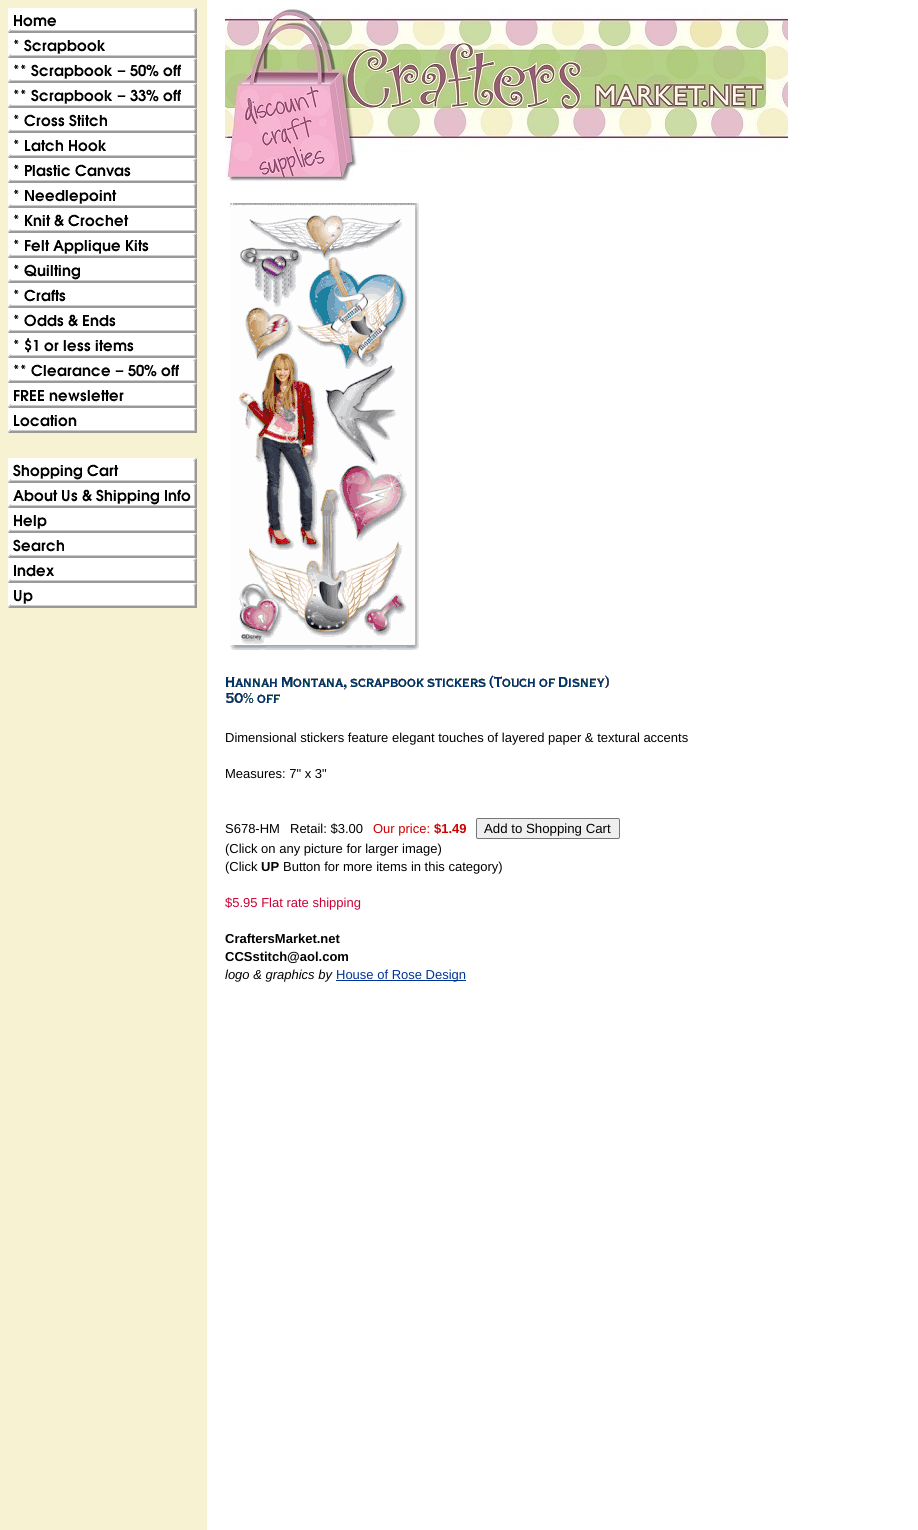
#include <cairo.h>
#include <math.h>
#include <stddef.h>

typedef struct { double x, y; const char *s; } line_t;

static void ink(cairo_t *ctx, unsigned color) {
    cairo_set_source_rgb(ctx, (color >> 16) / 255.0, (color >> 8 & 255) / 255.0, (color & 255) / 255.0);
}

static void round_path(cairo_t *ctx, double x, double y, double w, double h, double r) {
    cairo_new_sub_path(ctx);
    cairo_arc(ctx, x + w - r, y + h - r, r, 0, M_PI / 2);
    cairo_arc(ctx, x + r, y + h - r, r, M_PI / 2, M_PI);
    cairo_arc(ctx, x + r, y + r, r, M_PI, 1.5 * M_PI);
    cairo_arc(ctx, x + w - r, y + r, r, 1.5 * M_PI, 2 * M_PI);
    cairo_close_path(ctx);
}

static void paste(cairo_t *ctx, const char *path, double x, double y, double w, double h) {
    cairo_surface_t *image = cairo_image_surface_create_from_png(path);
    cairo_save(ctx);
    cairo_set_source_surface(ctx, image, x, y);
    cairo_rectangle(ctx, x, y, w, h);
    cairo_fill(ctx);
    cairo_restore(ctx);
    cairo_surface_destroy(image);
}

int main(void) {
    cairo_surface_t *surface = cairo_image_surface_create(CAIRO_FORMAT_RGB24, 918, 1530);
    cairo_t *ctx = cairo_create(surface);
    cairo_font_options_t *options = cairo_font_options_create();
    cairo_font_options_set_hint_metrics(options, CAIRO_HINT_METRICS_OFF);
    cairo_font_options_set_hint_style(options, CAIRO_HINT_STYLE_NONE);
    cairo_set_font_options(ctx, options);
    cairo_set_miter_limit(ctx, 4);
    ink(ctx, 0xFFFFFF);
    cairo_paint(ctx);
    ink(ctx, 0xF7F2D2);
    cairo_rectangle(ctx, 0, 0, 207, 1530);
    cairo_fill(ctx);
    paste(ctx, "media/1.png", 8, 8, 189, 600);
    paste(ctx, "media/2.png", 225, 8, 563, 173);
    paste(ctx, "media/3.png", 230, 203, 189, 447);
    paste(ctx, "media/4.png", 226, 675, 383, 28);
    cairo_select_font_face(ctx, "Liberation Sans", CAIRO_FONT_SLANT_NORMAL, CAIRO_FONT_WEIGHT_NORMAL);
    cairo_set_font_size(ctx, 13);
    ink(ctx, 0x000000);
    {
        static const line_t items[] = {
            {225, 742, "Dimensional stickers feature elegant touches of layered paper & textural accents"},
            {225, 778, "Measures: 7\" x 3\""},
            {225, 833, "S678-HM"},
            {290, 833, "Retail: $3.00"},
        };
        for (size_t i = 0; i < sizeof items / sizeof *items; i++) {
            cairo_move_to(ctx, items[i].x, items[i].y);
            cairo_show_text(ctx, items[i].s);
        }
    }
    ink(ctx, 0xCC0000);
    cairo_move_to(ctx, 373, 833);
    cairo_show_text(ctx, "Our price:");
    cairo_select_font_face(ctx, "Liberation Sans", CAIRO_FONT_SLANT_NORMAL, CAIRO_FONT_WEIGHT_BOLD);
    cairo_move_to(ctx, 434, 833);
    cairo_show_text(ctx, "$1.49");
    ink(ctx, 0xEFEFEF);
    round_path(ctx, 476.5, 818.5, 143, 20, 1.5);
    cairo_fill_preserve(ctx);
    ink(ctx, 0x767676);
    cairo_set_line_width(ctx, 1);
    cairo_stroke(ctx);
    cairo_select_font_face(ctx, "Liberation Sans", CAIRO_FONT_SLANT_NORMAL, CAIRO_FONT_WEIGHT_NORMAL);
    cairo_set_font_size(ctx, 13.25);
    ink(ctx, 0x000000);
    cairo_move_to(ctx, 484, 833);
    cairo_show_text(ctx, "Add to Shopping Cart");
    cairo_set_font_size(ctx, 13);
    cairo_move_to(ctx, 225, 853);
    cairo_show_text(ctx, "(Click on any picture for larger image)");
    cairo_move_to(ctx, 225, 871);
    cairo_show_text(ctx, "(Click");
    cairo_select_font_face(ctx, "Liberation Sans", CAIRO_FONT_SLANT_NORMAL, CAIRO_FONT_WEIGHT_BOLD);
    cairo_move_to(ctx, 261, 871);
    cairo_show_text(ctx, "UP");
    cairo_select_font_face(ctx, "Liberation Sans", CAIRO_FONT_SLANT_NORMAL, CAIRO_FONT_WEIGHT_NORMAL);
    cairo_move_to(ctx, 283, 871);
    cairo_show_text(ctx, "Button for more items in this category)");
    ink(ctx, 0xCC0033);
    cairo_move_to(ctx, 225, 907);
    cairo_show_text(ctx, "$5.95 Flat rate shipping");
    cairo_select_font_face(ctx, "Liberation Sans", CAIRO_FONT_SLANT_NORMAL, CAIRO_FONT_WEIGHT_BOLD);
    ink(ctx, 0x000000);
    cairo_move_to(ctx, 225, 943);
    cairo_show_text(ctx, "CraftersMarket.net");
    cairo_move_to(ctx, 225, 961);
    cairo_show_text(ctx, "CCSstitch@aol.com");
    cairo_select_font_face(ctx, "Liberation Sans", CAIRO_FONT_SLANT_ITALIC, CAIRO_FONT_WEIGHT_NORMAL);
    cairo_move_to(ctx, 225, 979);
    cairo_show_text(ctx, "logo & graphics by");
    ink(ctx, 0x003399);
    cairo_rectangle(ctx, 336, 980, 130, 1);
    cairo_fill(ctx);
    cairo_select_font_face(ctx, "Liberation Sans", CAIRO_FONT_SLANT_NORMAL, CAIRO_FONT_WEIGHT_NORMAL);
    cairo_move_to(ctx, 336, 979);
    cairo_show_text(ctx, "House of Rose Design");
    cairo_surface_write_to_png(surface, "image.png");
    cairo_font_options_destroy(options);
    cairo_destroy(ctx);
    cairo_surface_destroy(surface);
    return 0;
}
